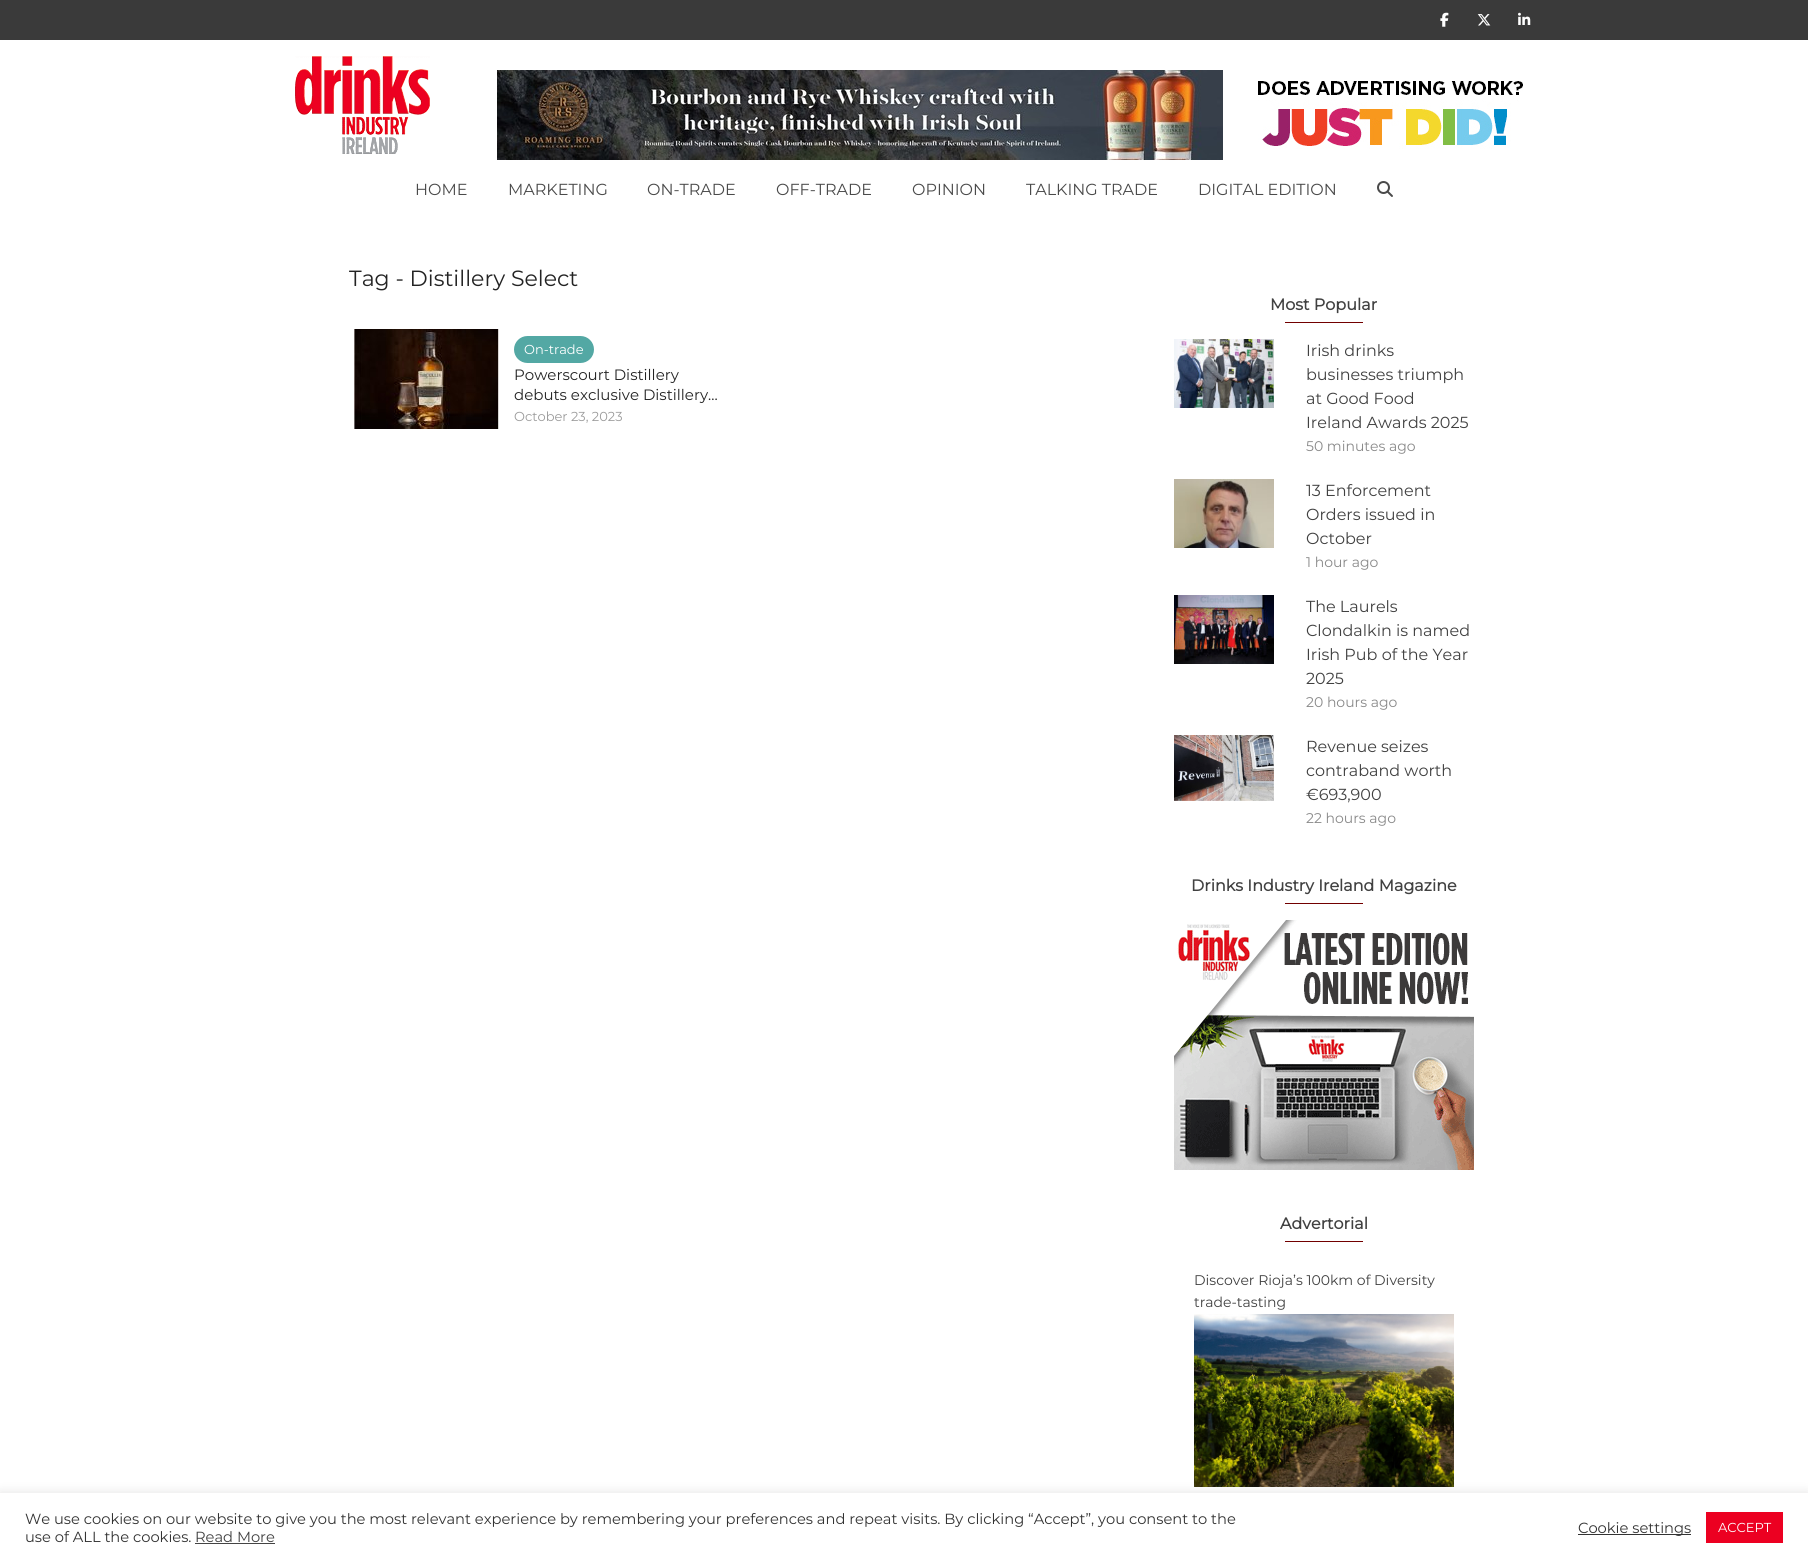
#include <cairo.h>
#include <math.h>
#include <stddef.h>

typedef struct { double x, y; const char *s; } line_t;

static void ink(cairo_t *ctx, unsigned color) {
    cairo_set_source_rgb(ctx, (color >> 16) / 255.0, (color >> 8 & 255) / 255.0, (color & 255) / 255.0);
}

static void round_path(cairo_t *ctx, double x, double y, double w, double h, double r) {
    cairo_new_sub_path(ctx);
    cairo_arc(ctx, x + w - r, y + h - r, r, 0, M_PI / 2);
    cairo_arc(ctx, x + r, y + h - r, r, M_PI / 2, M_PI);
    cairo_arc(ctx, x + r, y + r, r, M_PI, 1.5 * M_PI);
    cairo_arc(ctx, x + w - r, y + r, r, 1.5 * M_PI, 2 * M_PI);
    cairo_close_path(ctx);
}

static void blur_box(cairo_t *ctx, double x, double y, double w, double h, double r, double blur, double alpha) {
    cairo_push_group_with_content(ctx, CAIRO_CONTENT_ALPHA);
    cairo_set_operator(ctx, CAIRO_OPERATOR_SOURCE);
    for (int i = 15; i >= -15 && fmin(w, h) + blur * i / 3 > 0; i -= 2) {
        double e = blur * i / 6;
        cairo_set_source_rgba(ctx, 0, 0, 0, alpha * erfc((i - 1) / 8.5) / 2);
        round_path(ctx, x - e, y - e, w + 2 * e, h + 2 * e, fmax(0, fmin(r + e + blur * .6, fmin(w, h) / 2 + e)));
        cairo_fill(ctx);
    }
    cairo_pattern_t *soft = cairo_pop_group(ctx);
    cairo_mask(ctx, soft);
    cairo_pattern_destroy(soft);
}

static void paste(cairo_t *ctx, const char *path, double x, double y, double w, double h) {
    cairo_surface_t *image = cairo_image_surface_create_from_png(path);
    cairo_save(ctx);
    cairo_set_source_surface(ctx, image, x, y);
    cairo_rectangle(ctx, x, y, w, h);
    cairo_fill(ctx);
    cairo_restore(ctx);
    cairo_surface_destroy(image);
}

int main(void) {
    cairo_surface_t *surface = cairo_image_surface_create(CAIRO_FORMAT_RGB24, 1808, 1562);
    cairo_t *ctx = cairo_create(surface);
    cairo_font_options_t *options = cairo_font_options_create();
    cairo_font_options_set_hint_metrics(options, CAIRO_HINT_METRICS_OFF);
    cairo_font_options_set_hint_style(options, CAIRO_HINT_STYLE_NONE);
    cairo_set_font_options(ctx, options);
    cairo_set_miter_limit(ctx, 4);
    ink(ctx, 0xFFFFFF);
    cairo_paint(ctx);
    ink(ctx, 0x3A3A3A);
    cairo_rectangle(ctx, 0, 0, 1808, 40);
    cairo_fill(ctx);
    paste(ctx, "media/1.png", 1440, 12, 9, 15);
    paste(ctx, "media/2.png", 1477, 14, 14, 12);
    paste(ctx, "media/3.png", 1518, 12, 13, 13);
    paste(ctx, "media/4.png", 295, 56, 135, 98);
    paste(ctx, "media/5.png", 497, 70, 726, 90);
    paste(ctx, "media/6.png", 1258, 81, 265, 68);
    cairo_select_font_face(ctx, "Montserrat Thin", CAIRO_FONT_SLANT_NORMAL, CAIRO_FONT_WEIGHT_NORMAL);
    cairo_set_font_size(ctx, 16);
    ink(ctx, 0x4A4A4A);
    {
        static const line_t items[] = {
            {415, 195, "HOME"},
            {508, 195, "MARKETING"},
            {647, 195, "ON-TRADE"},
            {776, 195, "OFF-TRADE"},
            {912, 195, "OPINION"},
            {1026, 195, "TALKING TRADE"},
            {1198, 195, "DIGITAL EDITION"},
        };
        for (size_t i = 0; i < sizeof items / sizeof *items; i++) {
            cairo_move_to(ctx, items[i].x, items[i].y);
            cairo_show_text(ctx, items[i].s);
        }
    }
    paste(ctx, "media/7.png", 1377, 181, 16, 16);
    cairo_set_font_size(ctx, 22);
    ink(ctx, 0x232323);
    cairo_move_to(ctx, 349, 286);
    cairo_show_text(ctx, "Tag - Distillery Select");
    paste(ctx, "media/8.png", 354, 329, 145, 100);
    ink(ctx, 0x53A8A4);
    round_path(ctx, 514, 336, 80, 27, 13.5);
    cairo_fill(ctx);
    cairo_set_font_size(ctx, 13);
    ink(ctx, 0xFFFFFF);
    cairo_move_to(ctx, 524, 354);
    cairo_show_text(ctx, "On-trade");
    cairo_set_font_size(ctx, 15);
    ink(ctx, 0x232323);
    cairo_move_to(ctx, 514, 380);
    cairo_show_text(ctx, "Powerscourt Distillery");
    cairo_move_to(ctx, 514, 400);
    cairo_show_text(ctx, "debuts exclusive Distillery...");
    cairo_set_font_size(ctx, 13);
    ink(ctx, 0x9B9B9B);
    cairo_move_to(ctx, 514, 421);
    cairo_show_text(ctx, "October 23, 2023");
    cairo_select_font_face(ctx, "Montserrat", CAIRO_FONT_SLANT_NORMAL, CAIRO_FONT_WEIGHT_BOLD);
    cairo_set_font_size(ctx, 16);
    ink(ctx, 0x414141);
    cairo_move_to(ctx, 1270, 310);
    cairo_show_text(ctx, "Most Popular");
    ink(ctx, 0x720000);
    cairo_rectangle(ctx, 1285, 322, 78, 1);
    cairo_fill(ctx);
    paste(ctx, "media/9.png", 1174, 339, 100, 69);
    cairo_select_font_face(ctx, "Montserrat Thin", CAIRO_FONT_SLANT_NORMAL, CAIRO_FONT_WEIGHT_NORMAL);
    ink(ctx, 0x414141);
    {
        static const line_t items[] = {
            {1306, 356, "Irish drinks"},
            {1306, 380, "businesses triumph"},
            {1306, 404, "at Good Food"},
            {1306, 428, "Ireland Awards 2025"},
        };
        for (size_t i = 0; i < sizeof items / sizeof *items; i++) {
            cairo_move_to(ctx, items[i].x, items[i].y);
            cairo_show_text(ctx, items[i].s);
        }
    }
    cairo_set_font_size(ctx, 14);
    ink(ctx, 0x898989);
    cairo_move_to(ctx, 1306, 451);
    cairo_show_text(ctx, "50 minutes ago");
    paste(ctx, "media/10.png", 1174, 479, 100, 69);
    cairo_set_font_size(ctx, 16);
    ink(ctx, 0x414141);
    {
        static const line_t items[] = {
            {1306, 496, "13 Enforcement"},
            {1306, 520, "Orders issued in"},
            {1306, 544, "October"},
        };
        for (size_t i = 0; i < sizeof items / sizeof *items; i++) {
            cairo_move_to(ctx, items[i].x, items[i].y);
            cairo_show_text(ctx, items[i].s);
        }
    }
    cairo_set_font_size(ctx, 14);
    ink(ctx, 0x898989);
    cairo_move_to(ctx, 1306, 567);
    cairo_show_text(ctx, "1 hour ago");
    paste(ctx, "media/11.png", 1174, 595, 100, 69);
    cairo_set_font_size(ctx, 16);
    ink(ctx, 0x414141);
    {
        static const line_t items[] = {
            {1306, 612, "The Laurels"},
            {1306, 636, "Clondalkin is named"},
            {1306, 660, "Irish Pub of the Year"},
            {1306, 684, "2025"},
        };
        for (size_t i = 0; i < sizeof items / sizeof *items; i++) {
            cairo_move_to(ctx, items[i].x, items[i].y);
            cairo_show_text(ctx, items[i].s);
        }
    }
    cairo_set_font_size(ctx, 14);
    ink(ctx, 0x898989);
    cairo_move_to(ctx, 1306, 707);
    cairo_show_text(ctx, "20 hours ago");
    paste(ctx, "media/12.png", 1174, 735, 100, 66);
    cairo_set_font_size(ctx, 16);
    ink(ctx, 0x414141);
    {
        static const line_t items[] = {
            {1306, 752, "Revenue seizes"},
            {1306, 776, "contraband worth"},
            {1306, 800, "€693,900"},
        };
        for (size_t i = 0; i < sizeof items / sizeof *items; i++) {
            cairo_move_to(ctx, items[i].x, items[i].y);
            cairo_show_text(ctx, items[i].s);
        }
    }
    cairo_set_font_size(ctx, 14);
    ink(ctx, 0x898989);
    cairo_move_to(ctx, 1306, 823);
    cairo_show_text(ctx, "22 hours ago");
    cairo_select_font_face(ctx, "Montserrat", CAIRO_FONT_SLANT_NORMAL, CAIRO_FONT_WEIGHT_BOLD);
    cairo_set_font_size(ctx, 16);
    ink(ctx, 0x414141);
    cairo_move_to(ctx, 1191, 891);
    cairo_show_text(ctx, "Drinks Industry Ireland Magazine");
    ink(ctx, 0x720000);
    cairo_rectangle(ctx, 1285, 903, 78, 1);
    cairo_fill(ctx);
    paste(ctx, "media/13.png", 1174, 920, 300, 250);
    ink(ctx, 0x414141);
    cairo_move_to(ctx, 1280, 1229);
    cairo_show_text(ctx, "Advertorial");
    ink(ctx, 0x720000);
    cairo_rectangle(ctx, 1285, 1241, 78, 1);
    cairo_fill(ctx);
    cairo_select_font_face(ctx, "Montserrat Thin", CAIRO_FONT_SLANT_NORMAL, CAIRO_FONT_WEIGHT_NORMAL);
    cairo_set_font_size(ctx, 14);
    ink(ctx, 0x414141);
    cairo_move_to(ctx, 1194, 1285);
    cairo_show_text(ctx, "Discover Rioja’s 100km of Diversity");
    cairo_move_to(ctx, 1194, 1307);
    cairo_show_text(ctx, "trade-tasting");
    paste(ctx, "media/14.png", 1194, 1314, 260, 173);
    ink(ctx, 0xACABAB);
    blur_box(ctx, 0, 1492, 1808, 69, 0, 5, 0.3);
    ink(ctx, 0xFFFFFF);
    cairo_rectangle(ctx, 0, 1493, 1808, 69);
    cairo_fill(ctx);
    cairo_set_font_size(ctx, 14.67);
    ink(ctx, 0x333333);
    cairo_move_to(ctx, 25, 1524);
    cairo_show_text(ctx, "We use cookies on our website to give you the most relevant experience by remembering your preferences and repeat visits. By clicking “Accept”, you consent to the");
    cairo_move_to(ctx, 25, 1542);
    cairo_show_text(ctx, "use of ALL the cookies.");
    ink(ctx, 0x414141);
    cairo_move_to(ctx, 195, 1542);
    cairo_show_text(ctx, "Read More");
    ink(ctx, 0x444444);
    cairo_rectangle(ctx, 195, 1543, 80, 1);
    cairo_fill(ctx);
    ink(ctx, 0x333333);
    cairo_rectangle(ctx, 1578, 1534, 113, 1);
    cairo_fill(ctx);
    cairo_move_to(ctx, 1578, 1533);
    cairo_show_text(ctx, "Cookie settings");
    ink(ctx, 0xEC0021);
    cairo_rectangle(ctx, 1706, 1512, 77, 31);
    cairo_fill(ctx);
    cairo_set_font_size(ctx, 13);
    ink(ctx, 0xFFFFFF);
    cairo_move_to(ctx, 1718, 1532);
    cairo_show_text(ctx, "ACCEPT");
    cairo_surface_write_to_png(surface, "image.png");
    cairo_font_options_destroy(options);
    cairo_destroy(ctx);
    cairo_surface_destroy(surface);
    return 0;
}
